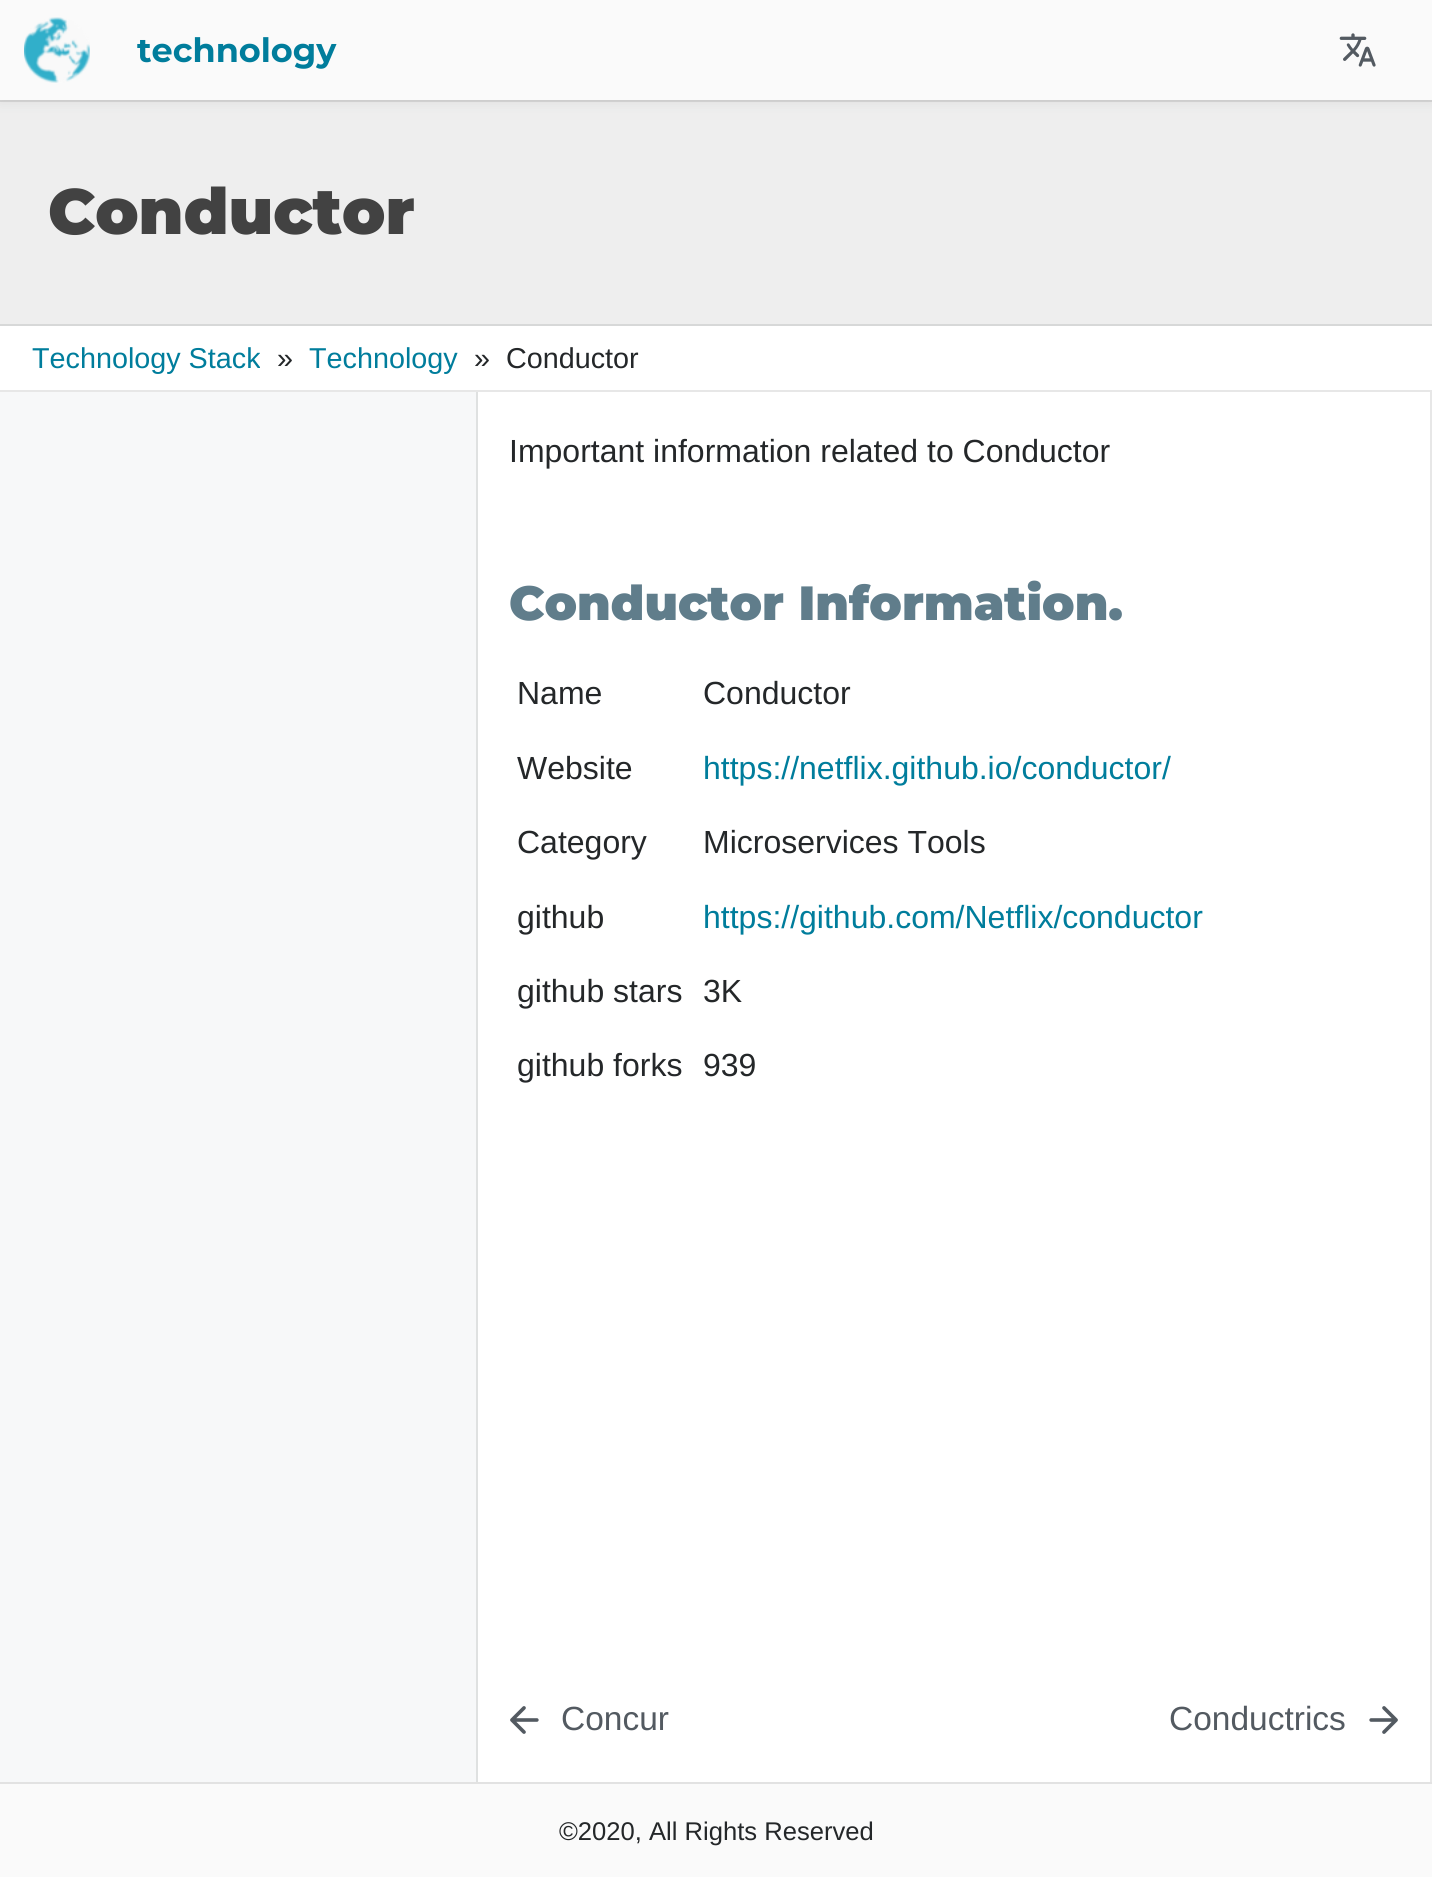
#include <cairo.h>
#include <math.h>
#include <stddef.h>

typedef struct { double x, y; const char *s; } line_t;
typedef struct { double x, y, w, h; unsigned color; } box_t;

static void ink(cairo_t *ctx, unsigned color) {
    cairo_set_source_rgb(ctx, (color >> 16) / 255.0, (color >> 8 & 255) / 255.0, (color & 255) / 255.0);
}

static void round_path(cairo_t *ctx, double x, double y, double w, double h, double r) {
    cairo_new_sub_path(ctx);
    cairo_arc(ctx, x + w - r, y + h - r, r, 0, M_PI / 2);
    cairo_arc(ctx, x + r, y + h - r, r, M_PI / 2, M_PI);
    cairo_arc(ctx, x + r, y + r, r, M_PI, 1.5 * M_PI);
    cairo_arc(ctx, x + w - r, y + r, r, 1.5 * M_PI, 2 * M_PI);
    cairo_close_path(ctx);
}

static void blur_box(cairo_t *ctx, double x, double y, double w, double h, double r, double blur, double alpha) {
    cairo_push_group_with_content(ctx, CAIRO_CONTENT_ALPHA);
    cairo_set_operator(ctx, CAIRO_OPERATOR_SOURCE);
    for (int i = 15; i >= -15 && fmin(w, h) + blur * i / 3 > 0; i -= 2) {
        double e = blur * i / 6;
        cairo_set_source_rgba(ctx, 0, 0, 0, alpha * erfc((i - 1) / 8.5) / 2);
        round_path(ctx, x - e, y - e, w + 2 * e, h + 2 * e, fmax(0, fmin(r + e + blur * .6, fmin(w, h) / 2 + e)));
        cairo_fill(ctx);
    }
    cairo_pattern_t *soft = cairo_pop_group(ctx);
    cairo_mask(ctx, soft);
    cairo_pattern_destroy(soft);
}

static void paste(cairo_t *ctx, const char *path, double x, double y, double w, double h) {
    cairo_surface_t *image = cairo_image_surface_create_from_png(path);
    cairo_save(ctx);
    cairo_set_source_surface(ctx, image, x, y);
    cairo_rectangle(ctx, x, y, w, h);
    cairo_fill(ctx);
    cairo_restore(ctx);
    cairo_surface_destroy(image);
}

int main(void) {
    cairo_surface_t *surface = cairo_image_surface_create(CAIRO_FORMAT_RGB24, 1432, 1877);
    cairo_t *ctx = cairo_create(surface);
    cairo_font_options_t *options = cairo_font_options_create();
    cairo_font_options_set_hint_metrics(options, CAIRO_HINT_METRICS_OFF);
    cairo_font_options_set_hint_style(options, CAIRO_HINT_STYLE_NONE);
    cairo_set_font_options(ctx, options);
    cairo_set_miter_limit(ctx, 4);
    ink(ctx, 0xEEEEEE);
    cairo_paint(ctx);
    ink(ctx, 0x3C4146);
    blur_box(ctx, 0, 2, 1432, 100, 0, 6, 0.1);
    cairo_set_source_rgba(ctx, 0.047, 0.051, 0.055, 0.1);
    cairo_rectangle(ctx, 0, 100, 1432, 2);
    cairo_fill(ctx);
    ink(ctx, 0xFAFAFA);
    cairo_rectangle(ctx, 0, 0, 1432, 100);
    cairo_fill(ctx);
    paste(ctx, "media/1.png", 24, 17, 66, 66);
    cairo_select_font_face(ctx, "Montserrat", CAIRO_FONT_SLANT_NORMAL, CAIRO_FONT_WEIGHT_BOLD);
    cairo_set_font_size(ctx, 33.5);
    ink(ctx, 0x007D9C);
    cairo_move_to(ctx, 137, 62);
    cairo_show_text(ctx, "technology");
    paste(ctx, "media/2.png", 1339, 33, 37, 34);
    ink(ctx, 0xD7D8D8);
    cairo_rectangle(ctx, 0, 324, 1432, 2);
    cairo_fill(ctx);
    cairo_select_font_face(ctx, "Montserrat Black", CAIRO_FONT_SLANT_NORMAL, CAIRO_FONT_WEIGHT_NORMAL);
    cairo_set_font_size(ctx, 64);
    ink(ctx, 0x424242);
    cairo_move_to(ctx, 48, 234);
    cairo_show_text(ctx, "Conductor");
    ink(ctx, 0xFFFFFF);
    cairo_rectangle(ctx, 0, 326, 1432, 64);
    cairo_fill(ctx);
    ink(ctx, 0xE7E7E7);
    cairo_rectangle(ctx, 0, 390, 1432, 2);
    cairo_fill(ctx);
    cairo_save(ctx);
    cairo_rectangle(ctx, 32, 342, 228, 32);
    cairo_clip(ctx);
    cairo_select_font_face(ctx, "Liberation Sans", CAIRO_FONT_SLANT_NORMAL, CAIRO_FONT_WEIGHT_NORMAL);
    cairo_set_font_size(ctx, 28.75);
    ink(ctx, 0x007D9C);
    cairo_move_to(ctx, 32, 368);
    cairo_show_text(ctx, "Technology Stack");
    cairo_restore(ctx);
    cairo_select_font_face(ctx, "Liberation Sans", CAIRO_FONT_SLANT_NORMAL, CAIRO_FONT_WEIGHT_NORMAL);
    cairo_set_font_size(ctx, 28.75);
    ink(ctx, 0x242729);
    cairo_move_to(ctx, 277, 368);
    cairo_show_text(ctx, "»");
    ink(ctx, 0x007D9C);
    cairo_move_to(ctx, 309, 368);
    cairo_show_text(ctx, "Technology");
    ink(ctx, 0x242729);
    cairo_move_to(ctx, 474, 368);
    cairo_show_text(ctx, "»");
    cairo_move_to(ctx, 506, 368);
    cairo_show_text(ctx, "Conductor");
    {
        static const box_t items[] = {
            {0, 392, 476, 1390, 0xF7F8F9},
            {476, 392, 2, 1390, 0xDFE1E1},
            {478, 392, 952, 1390, 0xFFFFFF},
            {1430, 392, 2, 1390, 0xE7E7E7},
        };
        for (size_t i = 0; i < sizeof items / sizeof *items; i++) {
            ink(ctx, items[i].color);
            cairo_rectangle(ctx, items[i].x, items[i].y, items[i].w, items[i].h);
            cairo_fill(ctx);
        }
    }
    cairo_set_font_size(ctx, 32);
    ink(ctx, 0x242729);
    cairo_move_to(ctx, 509, 462);
    cairo_show_text(ctx, "Important information related to Conductor");
    cairo_select_font_face(ctx, "Montserrat Black", CAIRO_FONT_SLANT_NORMAL, CAIRO_FONT_WEIGHT_NORMAL);
    cairo_set_font_size(ctx, 48);
    ink(ctx, 0x607D8B);
    cairo_move_to(ctx, 509, 620);
    cairo_show_text(ctx, "Conductor Information.");
    cairo_select_font_face(ctx, "Liberation Sans", CAIRO_FONT_SLANT_NORMAL, CAIRO_FONT_WEIGHT_NORMAL);
    cairo_set_font_size(ctx, 32);
    ink(ctx, 0x242729);
    {
        static const line_t items[] = {
            {517, 704, "Name"},
            {703, 704, "Conductor"},
            {517, 779, "Website"},
        };
        for (size_t i = 0; i < sizeof items / sizeof *items; i++) {
            cairo_move_to(ctx, items[i].x, items[i].y);
            cairo_show_text(ctx, items[i].s);
        }
    }
    ink(ctx, 0x007D9C);
    cairo_move_to(ctx, 703, 779);
    cairo_show_text(ctx, "https://netflix.github.io/conductor/");
    ink(ctx, 0x242729);
    {
        static const line_t items[] = {
            {517, 853, "Category"},
            {703, 853, "Microservices Tools"},
            {517, 928, "github"},
        };
        for (size_t i = 0; i < sizeof items / sizeof *items; i++) {
            cairo_move_to(ctx, items[i].x, items[i].y);
            cairo_show_text(ctx, items[i].s);
        }
    }
    ink(ctx, 0x007D9C);
    cairo_move_to(ctx, 703, 928);
    cairo_show_text(ctx, "https://github.com/Netflix/conductor");
    ink(ctx, 0x242729);
    {
        static const line_t items[] = {
            {517, 1002, "github stars"},
            {703, 1002, "3K"},
            {517, 1076, "github forks"},
            {703, 1076, "939"},
        };
        for (size_t i = 0; i < sizeof items / sizeof *items; i++) {
            cairo_move_to(ctx, items[i].x, items[i].y);
            cairo_show_text(ctx, items[i].s);
        }
    }
    paste(ctx, "media/3.png", 510, 1706, 29, 28);
    cairo_set_font_size(ctx, 33.5);
    ink(ctx, 0x535A61);
    cairo_move_to(ctx, 561, 1730);
    cairo_show_text(ctx, "Concur");
    cairo_move_to(ctx, 1169, 1730);
    cairo_show_text(ctx, "Conductrics");
    paste(ctx, "media/4.png", 1369, 1706, 29, 28);
    ink(ctx, 0xFAFAFA);
    cairo_rectangle(ctx, 0, 1784, 1432, 93);
    cairo_fill(ctx);
    ink(ctx, 0xE2E2E2);
    cairo_rectangle(ctx, 0, 1782, 1432, 2);
    cairo_fill(ctx);
    cairo_set_font_size(ctx, 25.6);
    ink(ctx, 0x242729);
    cairo_move_to(ctx, 559, 1840);
    cairo_show_text(ctx, "©2020, All Rights Reserved");
    cairo_surface_write_to_png(surface, "image.png");
    cairo_font_options_destroy(options);
    cairo_destroy(ctx);
    cairo_surface_destroy(surface);
    return 0;
}
